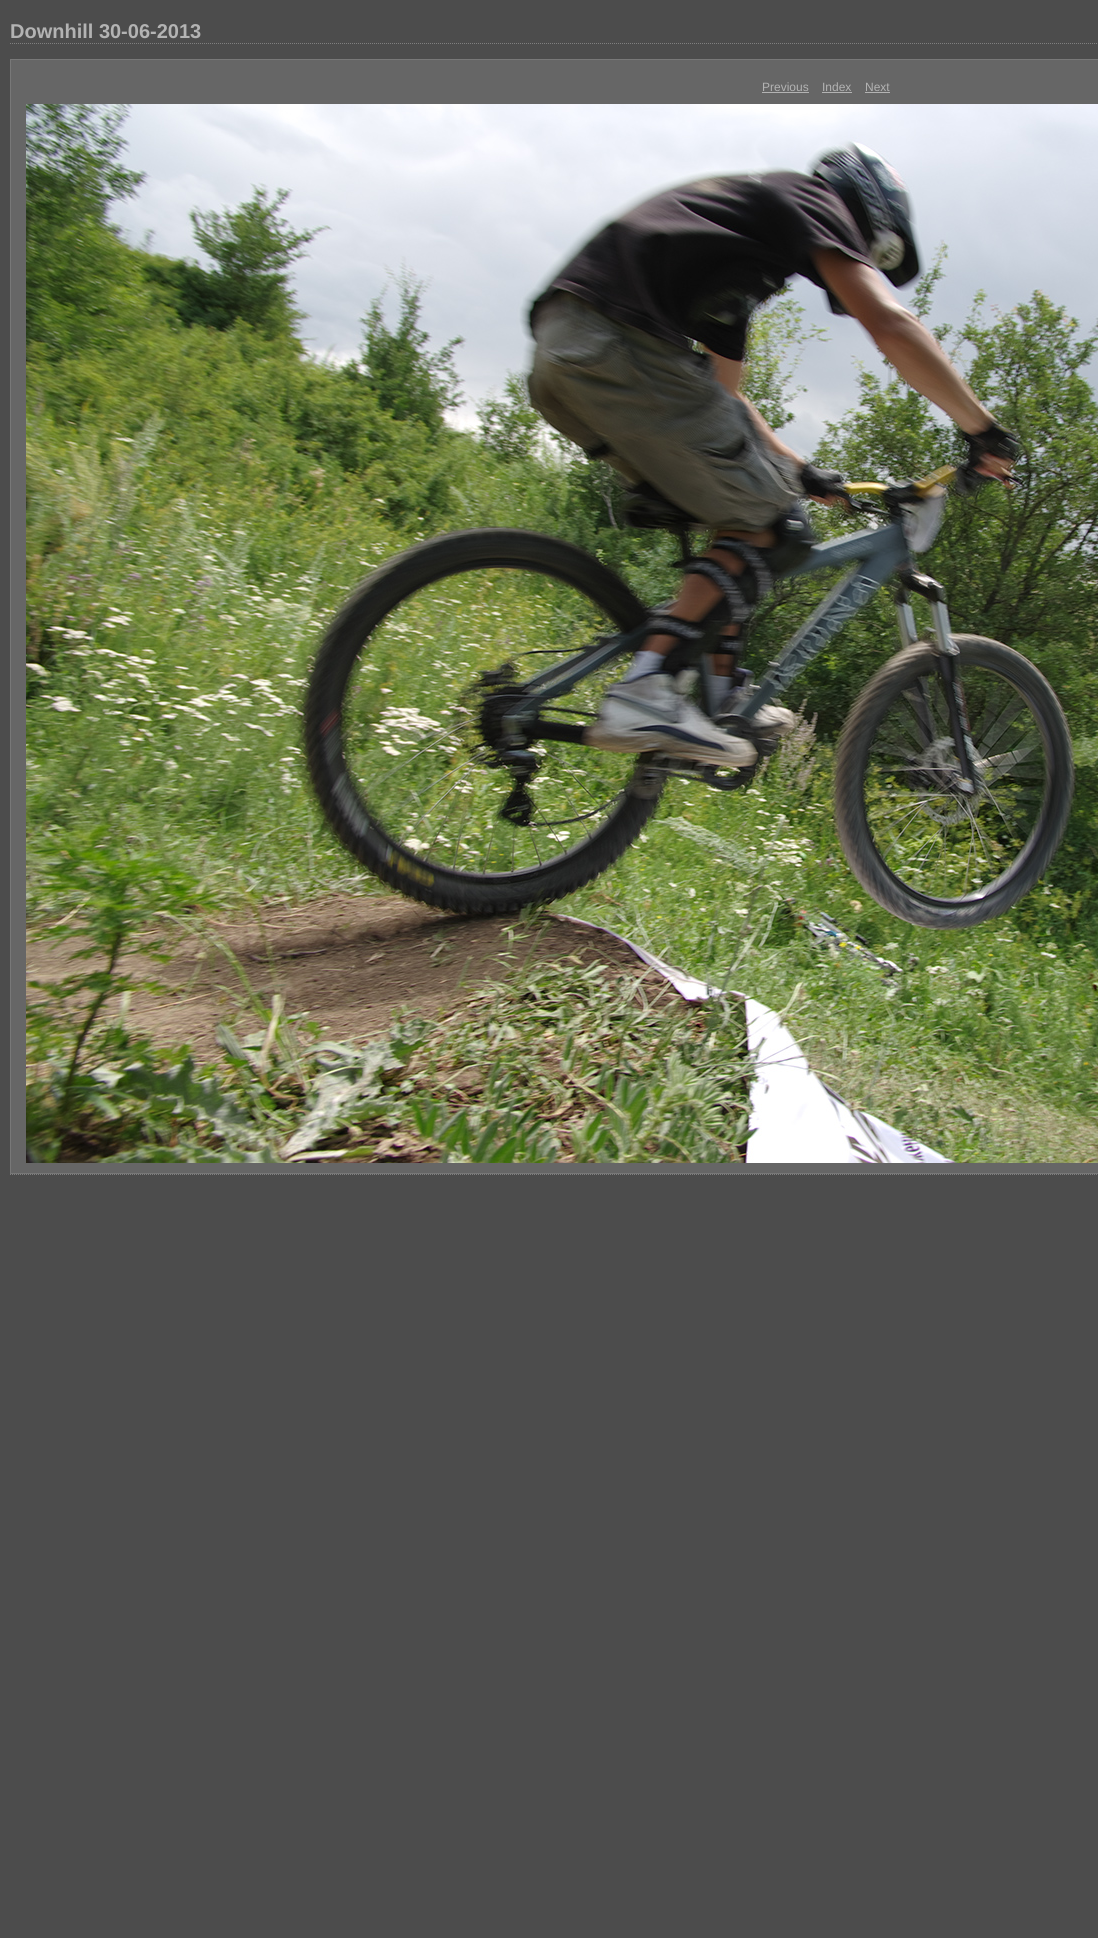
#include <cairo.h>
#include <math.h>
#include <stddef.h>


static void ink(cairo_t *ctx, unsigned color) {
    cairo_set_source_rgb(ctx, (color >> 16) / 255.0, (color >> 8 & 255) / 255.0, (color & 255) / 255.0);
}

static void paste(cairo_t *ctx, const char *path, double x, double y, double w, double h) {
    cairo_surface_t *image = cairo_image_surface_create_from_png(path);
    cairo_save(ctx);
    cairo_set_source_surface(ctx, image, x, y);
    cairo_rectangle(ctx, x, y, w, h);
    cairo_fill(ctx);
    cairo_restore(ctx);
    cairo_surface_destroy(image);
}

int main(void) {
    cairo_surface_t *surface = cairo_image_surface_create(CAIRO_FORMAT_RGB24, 1098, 1938);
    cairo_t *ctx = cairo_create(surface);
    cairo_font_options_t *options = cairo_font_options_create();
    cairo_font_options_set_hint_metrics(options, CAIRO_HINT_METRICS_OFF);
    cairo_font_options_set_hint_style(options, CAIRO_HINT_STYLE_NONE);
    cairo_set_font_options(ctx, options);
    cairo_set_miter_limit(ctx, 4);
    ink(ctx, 0x4C4C4C);
    cairo_paint(ctx);
    cairo_new_path(ctx);
    cairo_move_to(ctx, 10, 43.5);
    cairo_line_to(ctx, 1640, 43.5);
    ink(ctx, 0x7F7F7F);
    cairo_set_line_width(ctx, 1);
    cairo_set_dash(ctx, (double[]){1, 1}, 2, 0);
    cairo_stroke(ctx);
    cairo_select_font_face(ctx, "Liberation Sans", CAIRO_FONT_SLANT_NORMAL, CAIRO_FONT_WEIGHT_BOLD);
    cairo_set_font_size(ctx, 20);
    ink(ctx, 0xB3B3B3);
    cairo_move_to(ctx, 10, 38);
    cairo_show_text(ctx, "Downhill 30-06-2013");
    ink(ctx, 0x666666);
    cairo_rectangle(ctx, 10.5, 59.5, 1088, 1114);
    cairo_fill_preserve(ctx);
    ink(ctx, 0x787878);
    cairo_set_dash(ctx, NULL, 0, 0);
    cairo_stroke(ctx);
    cairo_select_font_face(ctx, "Liberation Sans", CAIRO_FONT_SLANT_NORMAL, CAIRO_FONT_WEIGHT_NORMAL);
    cairo_set_font_size(ctx, 12);
    ink(ctx, 0xB3B3B3);
    cairo_move_to(ctx, 762, 91);
    cairo_show_text(ctx, "Previous");
    cairo_rectangle(ctx, 762, 92, 47, 1);
    cairo_fill(ctx);
    cairo_move_to(ctx, 822, 91);
    cairo_show_text(ctx, "Index");
    cairo_rectangle(ctx, 822, 92, 30, 1);
    cairo_fill(ctx);
    cairo_move_to(ctx, 865, 91);
    cairo_show_text(ctx, "Next");
    cairo_rectangle(ctx, 865, 92, 25, 1);
    cairo_fill(ctx);
    paste(ctx, "media/1.png", 26, 104, 1072, 1059);
    cairo_new_path(ctx);
    cairo_move_to(ctx, 10, 1174.5);
    cairo_line_to(ctx, 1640, 1174.5);
    ink(ctx, 0x7F7F7F);
    cairo_set_dash(ctx, (double[]){1, 1}, 2, 0);
    cairo_stroke(ctx);
    cairo_surface_write_to_png(surface, "image.png");
    cairo_font_options_destroy(options);
    cairo_destroy(ctx);
    cairo_surface_destroy(surface);
    return 0;
}
